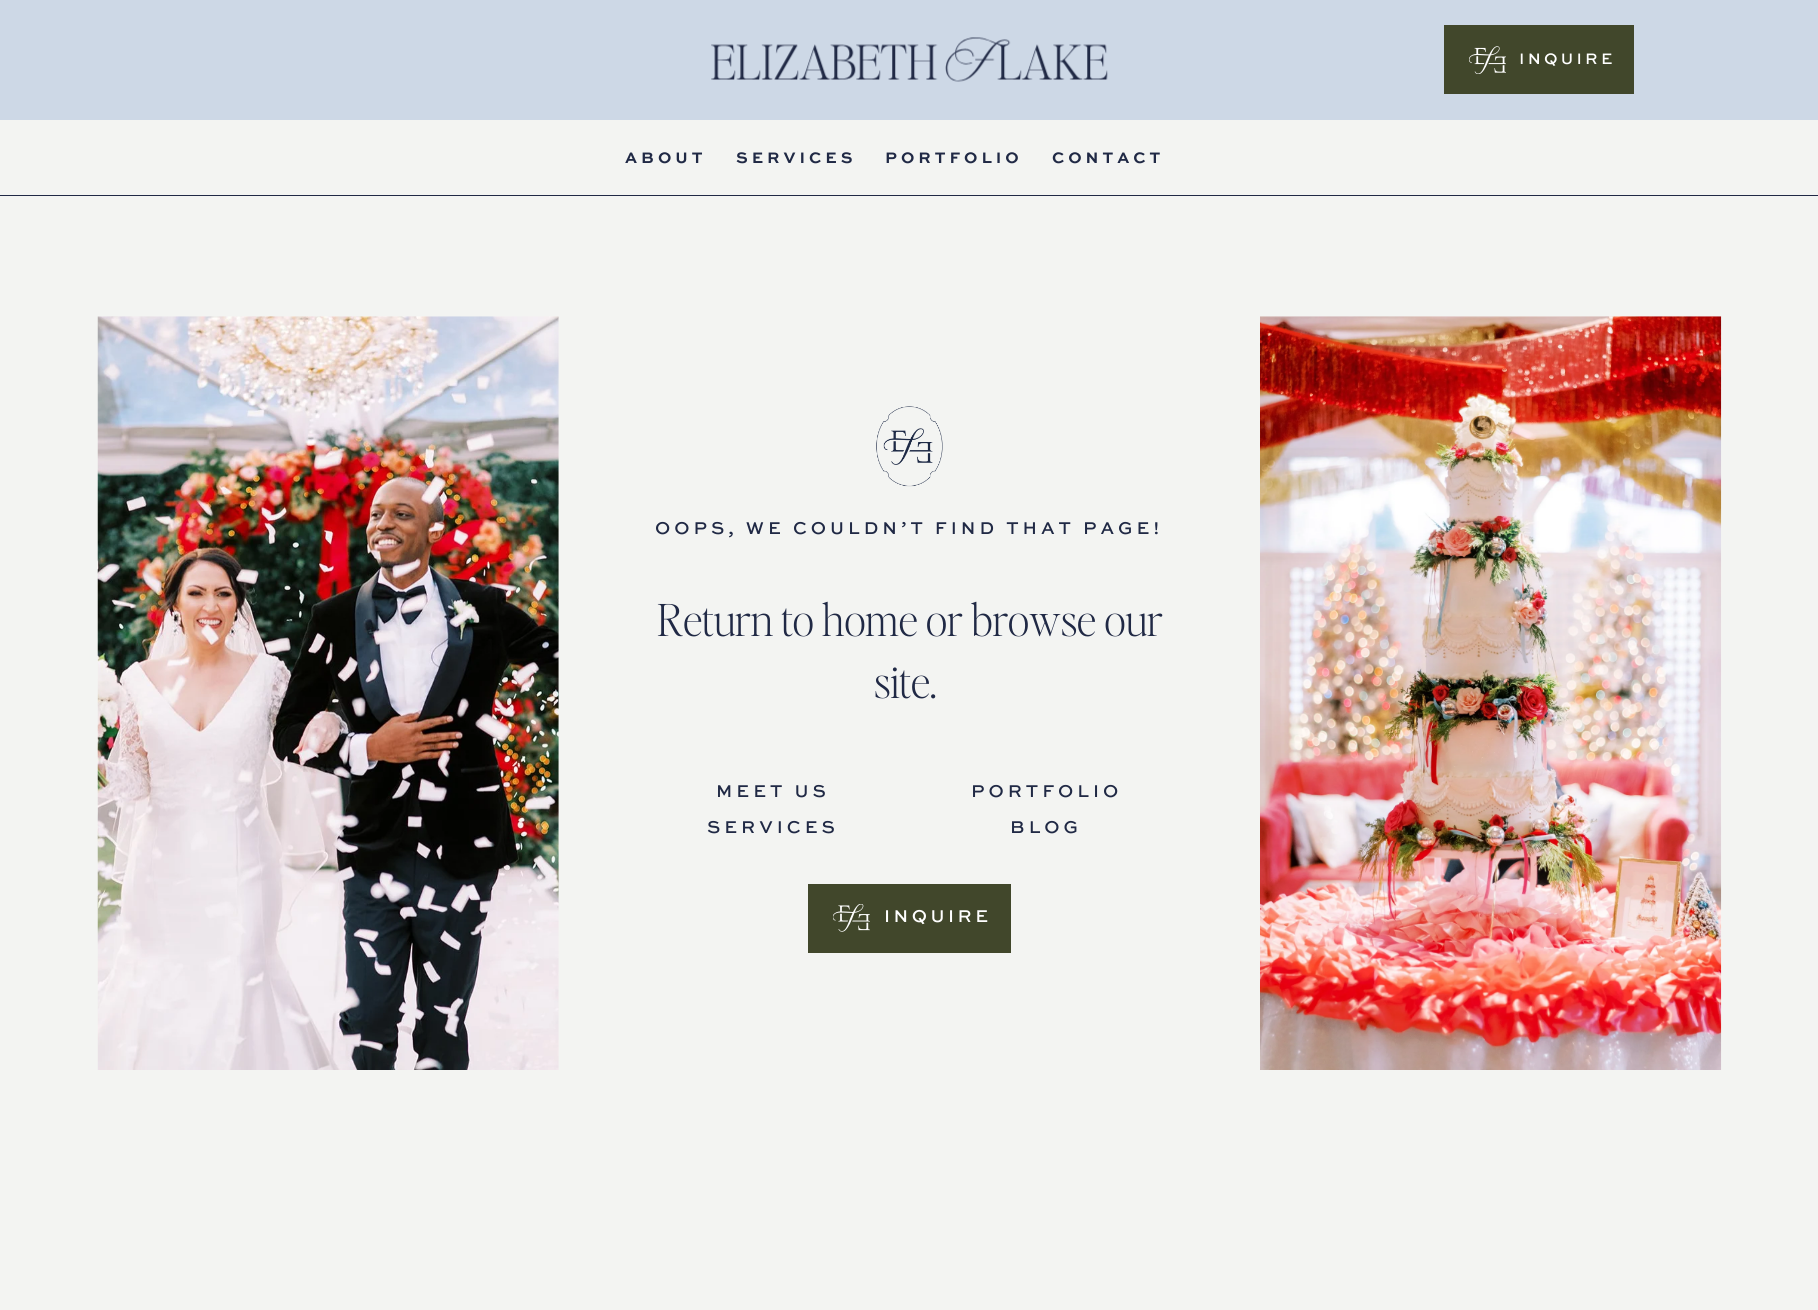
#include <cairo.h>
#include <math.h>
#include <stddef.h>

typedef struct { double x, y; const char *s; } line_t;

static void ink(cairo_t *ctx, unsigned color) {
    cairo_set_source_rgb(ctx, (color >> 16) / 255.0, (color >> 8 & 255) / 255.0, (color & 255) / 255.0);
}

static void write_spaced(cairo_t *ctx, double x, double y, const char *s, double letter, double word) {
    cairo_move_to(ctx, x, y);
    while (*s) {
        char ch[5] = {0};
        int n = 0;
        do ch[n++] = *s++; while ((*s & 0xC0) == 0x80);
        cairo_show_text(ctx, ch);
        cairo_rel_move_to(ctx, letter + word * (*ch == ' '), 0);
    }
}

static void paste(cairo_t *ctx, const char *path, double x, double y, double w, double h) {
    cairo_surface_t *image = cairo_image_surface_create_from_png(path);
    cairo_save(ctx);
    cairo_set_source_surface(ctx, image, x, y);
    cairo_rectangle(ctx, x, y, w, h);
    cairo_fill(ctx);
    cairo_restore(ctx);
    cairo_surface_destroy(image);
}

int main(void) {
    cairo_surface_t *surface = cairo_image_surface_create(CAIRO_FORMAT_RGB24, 1818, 1310);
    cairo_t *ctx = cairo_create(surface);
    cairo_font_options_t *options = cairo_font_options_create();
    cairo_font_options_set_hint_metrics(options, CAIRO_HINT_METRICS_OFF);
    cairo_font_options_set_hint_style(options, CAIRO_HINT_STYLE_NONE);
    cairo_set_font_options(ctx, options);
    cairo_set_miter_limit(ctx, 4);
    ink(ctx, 0xF3F4F2);
    cairo_paint(ctx);
    ink(ctx, 0xCDD8E6);
    cairo_rectangle(ctx, 0, 0, 1818, 120);
    cairo_fill(ctx);
    paste(ctx, "media/1.png", 711, 37, 397, 45);
    ink(ctx, 0x41472B);
    cairo_rectangle(ctx, 1444, 25, 190, 69);
    cairo_fill(ctx);
    paste(ctx, "media/2.png", 1469, 46, 37, 28);
    cairo_select_font_face(ctx, "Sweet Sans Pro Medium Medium", CAIRO_FONT_SLANT_NORMAL, CAIRO_FONT_WEIGHT_NORMAL);
    cairo_set_font_size(ctx, 16);
    ink(ctx, 0xFFFFFF);
    write_spaced(ctx, 1519, 64, "INQUIRE", 3.25, 0);
    ink(ctx, 0x202945);
    cairo_rectangle(ctx, 0, 195, 1818, 1);
    cairo_fill(ctx);
    cairo_select_font_face(ctx, "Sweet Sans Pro", CAIRO_FONT_SLANT_NORMAL, CAIRO_FONT_WEIGHT_BOLD);
    {
        static const line_t items[] = {
            {625, 163, "ABOUT"},
            {736, 163, "SERVICES"},
            {885, 163, "PORTFOLIO"},
            {1052, 163, "CONTACT"},
        };
        for (size_t i = 0; i < sizeof items / sizeof *items; i++) {
            write_spaced(ctx, items[i].x, items[i].y, items[i].s, 4, 0);
        }
    }
    paste(ctx, "media/3.png", 97, 316, 462, 754);
    paste(ctx, "media/4.png", 876, 406, 67, 81);
    paste(ctx, "media/5.png", 1260, 316, 462, 754);
    cairo_select_font_face(ctx, "Sweet Sans Pro Medium Medium", CAIRO_FONT_SLANT_NORMAL, CAIRO_FONT_WEIGHT_NORMAL);
    cairo_set_font_size(ctx, 18);
    write_spaced(ctx, 655, 534, "OOPS, WE COULDN’T FIND THAT PAGE!", 4, 0);
    cairo_select_font_face(ctx, "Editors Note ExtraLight", CAIRO_FONT_SLANT_NORMAL, CAIRO_FONT_WEIGHT_NORMAL);
    cairo_set_font_size(ctx, 44);
    cairo_move_to(ctx, 657, 636);
    cairo_show_text(ctx, "Return to home or browse our");
    cairo_move_to(ctx, 874, 698);
    cairo_show_text(ctx, "site.");
    cairo_select_font_face(ctx, "Sweet Sans Pro Medium Medium", CAIRO_FONT_SLANT_NORMAL, CAIRO_FONT_WEIGHT_NORMAL);
    cairo_set_font_size(ctx, 18);
    {
        static const line_t items[] = {
            {716, 797, "MEET US"},
            {707, 833, "SERVICES"},
            {971, 797, "PORTFOLIO"},
            {1010, 833, "BLOG"},
        };
        for (size_t i = 0; i < sizeof items / sizeof *items; i++) {
            write_spaced(ctx, items[i].x, items[i].y, items[i].s, 4, 0);
        }
    }
    ink(ctx, 0x41472B);
    cairo_rectangle(ctx, 808, 884, 203, 69);
    cairo_fill(ctx);
    paste(ctx, "media/6.png", 833, 904, 37, 28);
    ink(ctx, 0xFFFFFF);
    write_spaced(ctx, 884, 922, "INQUIRE", 3.5, 0);
    cairo_surface_write_to_png(surface, "image.png");
    cairo_font_options_destroy(options);
    cairo_destroy(ctx);
    cairo_surface_destroy(surface);
    return 0;
}
